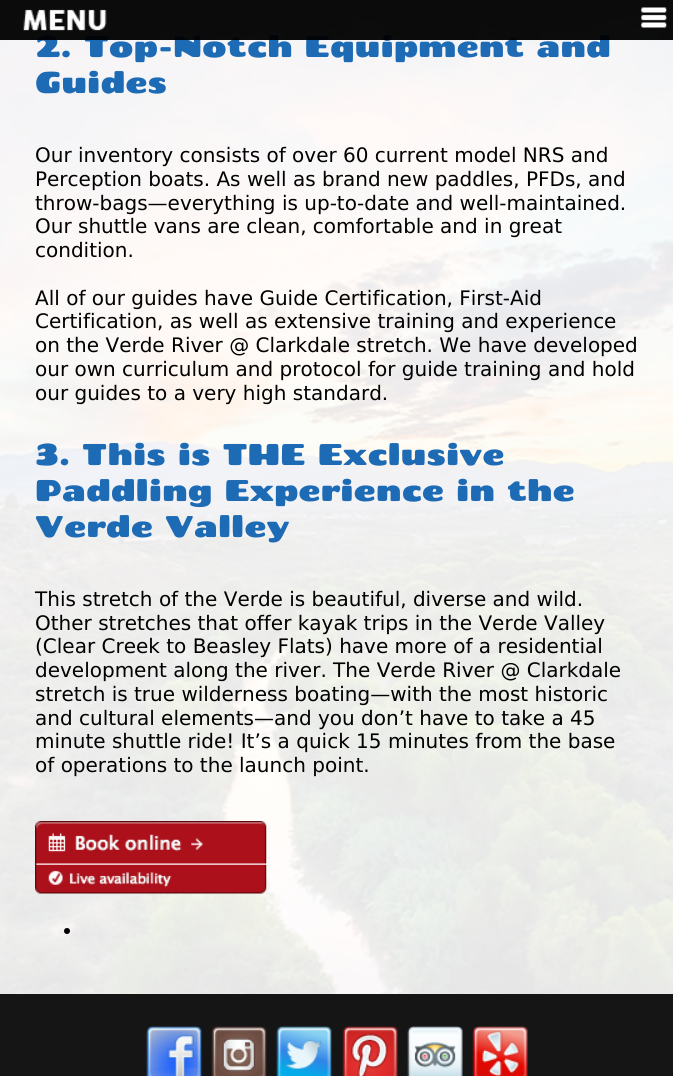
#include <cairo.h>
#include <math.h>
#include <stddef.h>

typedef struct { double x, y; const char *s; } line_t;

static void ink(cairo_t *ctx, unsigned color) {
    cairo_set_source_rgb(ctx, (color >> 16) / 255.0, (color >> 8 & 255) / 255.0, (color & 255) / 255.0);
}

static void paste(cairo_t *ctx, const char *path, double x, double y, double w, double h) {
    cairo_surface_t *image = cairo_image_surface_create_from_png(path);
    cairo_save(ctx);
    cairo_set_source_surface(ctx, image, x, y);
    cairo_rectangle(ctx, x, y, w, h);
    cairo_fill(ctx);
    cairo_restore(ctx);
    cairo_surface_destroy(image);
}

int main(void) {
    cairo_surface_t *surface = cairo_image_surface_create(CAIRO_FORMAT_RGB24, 673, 1076);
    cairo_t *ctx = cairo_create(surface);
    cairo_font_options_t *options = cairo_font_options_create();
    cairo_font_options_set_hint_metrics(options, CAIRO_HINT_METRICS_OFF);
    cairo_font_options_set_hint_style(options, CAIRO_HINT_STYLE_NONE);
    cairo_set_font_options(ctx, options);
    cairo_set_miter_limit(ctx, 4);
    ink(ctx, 0xFFFFFF);
    cairo_paint(ctx);
    paste(ctx, "media/1.png", 0, 0, 673, 994);
    cairo_select_font_face(ctx, "Chango", CAIRO_FONT_SLANT_NORMAL, CAIRO_FONT_WEIGHT_NORMAL);
    cairo_set_font_size(ctx, 30);
    ink(ctx, 0x1E6BB5);
    cairo_move_to(ctx, 35, 57);
    cairo_show_text(ctx, "2. Top-Notch Equipment and");
    cairo_set_source_rgba(ctx, 0, 0, 0, 0.95);
    cairo_rectangle(ctx, 0, 0, 673, 40);
    cairo_fill(ctx);
    paste(ctx, "media/2.png", 23, 9, 84, 22);
    paste(ctx, "media/3.png", 641, 7, 26, 21);
    ink(ctx, 0x1E6BB5);
    cairo_move_to(ctx, 35, 93);
    cairo_show_text(ctx, "Guides");
    cairo_select_font_face(ctx, "DejaVu Sans", CAIRO_FONT_SLANT_NORMAL, CAIRO_FONT_WEIGHT_NORMAL);
    cairo_set_font_size(ctx, 20);
    ink(ctx, 0x000000);
    {
        static const line_t items[] = {
            {35, 162, "Our inventory consists of over 60 current model NRS and"},
            {35, 186, "Perception boats. As well as brand new paddles, PFDs, and"},
            {35, 210, "throw-bags—everything is up-to-date and well-maintained."},
            {35, 233, "Our shuttle vans are clean, comfortable and in great"},
            {35, 257, "condition."},
            {35, 305, "All of our guides have Guide Certification, First-Aid"},
            {35, 328, "Certification, as well as extensive training and experience"},
            {35, 352, "on the Verde River @ Clarkdale stretch. We have developed"},
            {35, 376, "our own curriculum and protocol for guide training and hold"},
            {35, 400, "our guides to a very high standard."},
        };
        for (size_t i = 0; i < sizeof items / sizeof *items; i++) {
            cairo_move_to(ctx, items[i].x, items[i].y);
            cairo_show_text(ctx, items[i].s);
        }
    }
    cairo_select_font_face(ctx, "Chango", CAIRO_FONT_SLANT_NORMAL, CAIRO_FONT_WEIGHT_NORMAL);
    cairo_set_font_size(ctx, 30);
    ink(ctx, 0x1E6BB5);
    {
        static const line_t items[] = {
            {35, 465, "3. This is THE Exclusive"},
            {35, 501, "Paddling Experience in the"},
            {35, 537, "Verde Valley"},
        };
        for (size_t i = 0; i < sizeof items / sizeof *items; i++) {
            cairo_move_to(ctx, items[i].x, items[i].y);
            cairo_show_text(ctx, items[i].s);
        }
    }
    cairo_select_font_face(ctx, "DejaVu Sans", CAIRO_FONT_SLANT_NORMAL, CAIRO_FONT_WEIGHT_NORMAL);
    cairo_set_font_size(ctx, 20);
    ink(ctx, 0x000000);
    {
        static const line_t items[] = {
            {35, 606, "This stretch of the Verde is beautiful, diverse and wild."},
            {35, 630, "Other stretches that offer kayak trips in the Verde Valley"},
            {35, 653, "(Clear Creek to Beasley Flats) have more of a residential"},
            {35, 677, "development along the river. The Verde River @ Clarkdale"},
            {35, 701, "stretch is true wilderness boating—with the most historic"},
            {35, 725, "and cultural elements—and you don’t have to take a 45"},
            {35, 748, "minute shuttle ride! It’s a quick 15 minutes from the base"},
            {35, 772, "of operations to the launch point."},
        };
        for (size_t i = 0; i < sizeof items / sizeof *items; i++) {
            cairo_move_to(ctx, items[i].x, items[i].y);
            cairo_show_text(ctx, items[i].s);
        }
    }
    paste(ctx, "media/4.png", 35, 821, 232, 73);
    cairo_arc(ctx, 67, 931, 3, 0, 2 * M_PI);
    cairo_fill(ctx);
    ink(ctx, 0x151515);
    cairo_rectangle(ctx, 0, 994, 673, 82);
    cairo_fill(ctx);
    paste(ctx, "media/5.png", 146, 1026, 56, 50);
    paste(ctx, "media/6.png", 211, 1026, 56, 50);
    paste(ctx, "media/7.png", 276, 1026, 56, 50);
    paste(ctx, "media/8.png", 342, 1026, 56, 50);
    paste(ctx, "media/9.png", 407, 1026, 56, 50);
    paste(ctx, "media/10.png", 472, 1026, 56, 50);
    cairo_surface_write_to_png(surface, "image.png");
    cairo_font_options_destroy(options);
    cairo_destroy(ctx);
    cairo_surface_destroy(surface);
    return 0;
}
